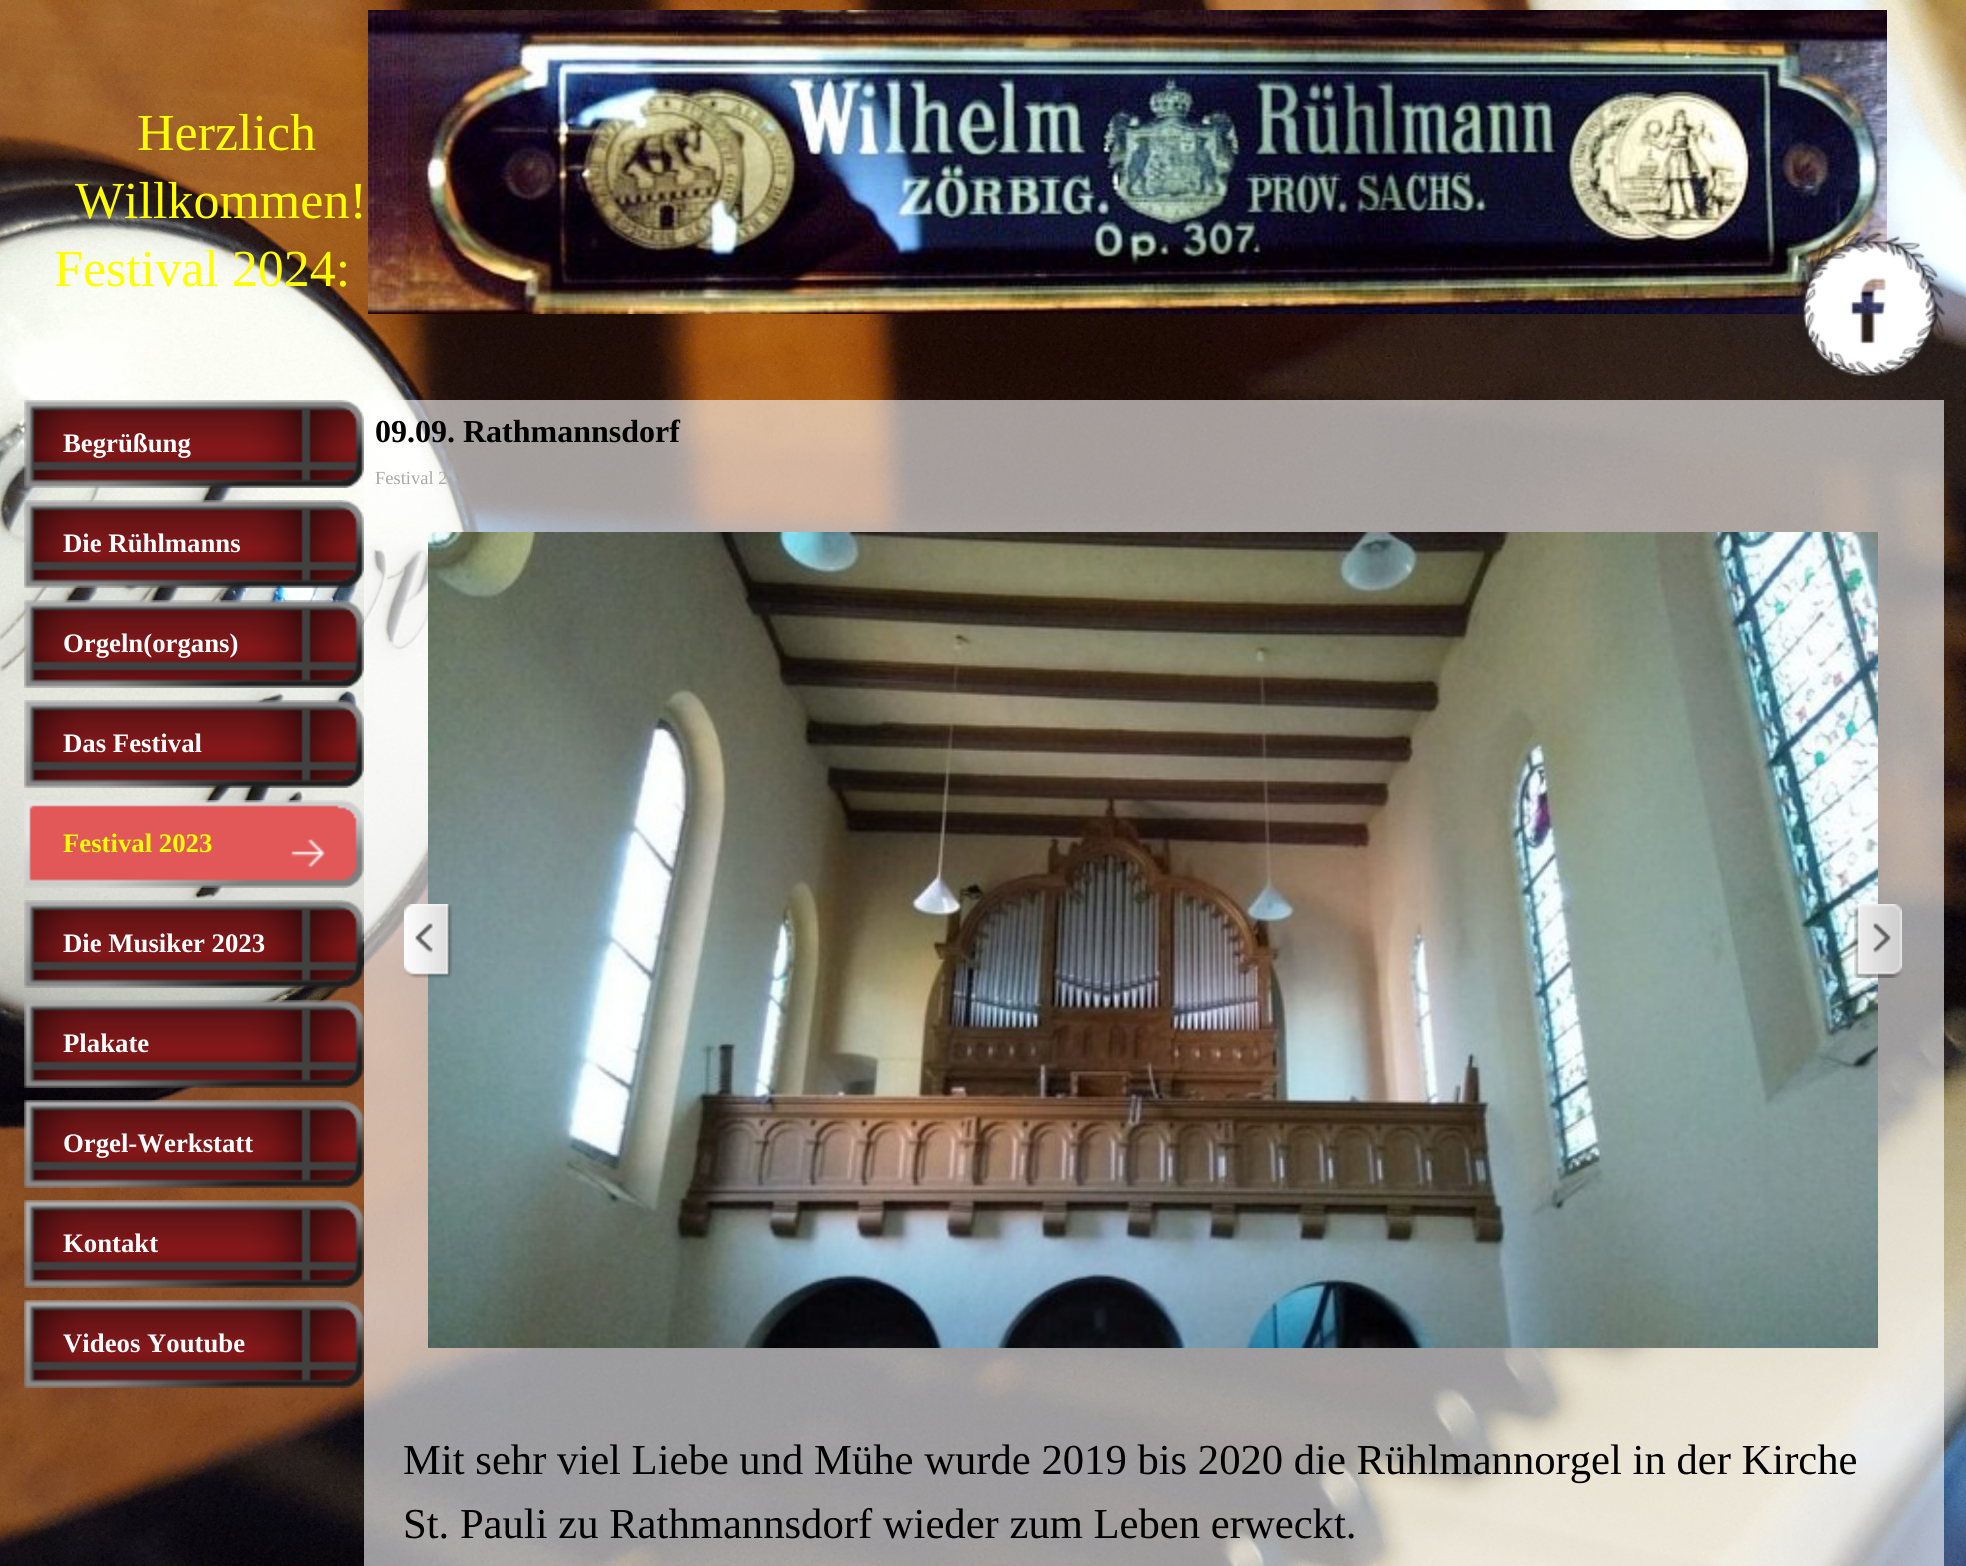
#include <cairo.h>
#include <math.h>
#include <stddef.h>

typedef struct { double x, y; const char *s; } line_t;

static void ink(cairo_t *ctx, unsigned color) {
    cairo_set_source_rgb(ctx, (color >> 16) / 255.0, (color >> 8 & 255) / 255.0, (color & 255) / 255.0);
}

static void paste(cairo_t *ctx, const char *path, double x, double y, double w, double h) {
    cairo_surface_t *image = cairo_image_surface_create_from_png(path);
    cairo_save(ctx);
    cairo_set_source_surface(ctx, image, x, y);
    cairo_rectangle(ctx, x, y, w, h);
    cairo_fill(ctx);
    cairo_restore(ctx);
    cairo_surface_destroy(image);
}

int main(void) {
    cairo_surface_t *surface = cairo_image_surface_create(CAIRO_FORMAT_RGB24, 1966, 1566);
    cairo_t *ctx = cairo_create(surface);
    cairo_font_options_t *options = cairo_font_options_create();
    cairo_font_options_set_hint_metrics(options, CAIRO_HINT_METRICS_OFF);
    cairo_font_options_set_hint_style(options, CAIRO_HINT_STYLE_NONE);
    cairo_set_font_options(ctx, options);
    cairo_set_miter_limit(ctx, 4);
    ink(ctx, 0xFFFFFF);
    cairo_paint(ctx);
    paste(ctx, "media/1.png", 0, 0, 1966, 1566);
    cairo_select_font_face(ctx, "Liberation Serif", CAIRO_FONT_SLANT_NORMAL, CAIRO_FONT_WEIGHT_NORMAL);
    cairo_set_font_size(ctx, 52);
    ink(ctx, 0xFFFF00);
    {
        static const line_t items[] = {
            {137, 150, "Herzlich"},
            {75, 218, "Willkommen!"},
            {54, 286, "Festival 2024:"},
        };
        for (size_t i = 0; i < sizeof items / sizeof *items; i++) {
            cairo_move_to(ctx, items[i].x, items[i].y);
            cairo_show_text(ctx, items[i].s);
        }
    }
    paste(ctx, "media/2.png", 368, 10, 1519, 304);
    paste(ctx, "media/3.png", 1792, 232, 153, 155);
    cairo_set_source_rgba(ctx, 1, 1, 1, 0.6);
    cairo_rectangle(ctx, 364, 400, 1580, 1166);
    cairo_fill(ctx);
    paste(ctx, "media/4.png", 24, 400, 340, 88);
    cairo_select_font_face(ctx, "Liberation Serif", CAIRO_FONT_SLANT_NORMAL, CAIRO_FONT_WEIGHT_BOLD);
    cairo_set_font_size(ctx, 26.75);
    ink(ctx, 0xFFFFFF);
    cairo_move_to(ctx, 63, 452);
    cairo_show_text(ctx, "Begrüßung");
    paste(ctx, "media/5.png", 24, 500, 340, 88);
    cairo_move_to(ctx, 63, 552);
    cairo_show_text(ctx, "Die Rühlmanns");
    paste(ctx, "media/6.png", 24, 600, 340, 88);
    cairo_move_to(ctx, 63, 652);
    cairo_show_text(ctx, "Orgeln(organs)");
    paste(ctx, "media/7.png", 24, 700, 340, 88);
    cairo_move_to(ctx, 63, 752);
    cairo_show_text(ctx, "Das Festival");
    paste(ctx, "media/8.png", 24, 800, 340, 88);
    ink(ctx, 0xFFFF00);
    cairo_move_to(ctx, 63, 852);
    cairo_show_text(ctx, "Festival 2023");
    paste(ctx, "media/9.png", 24, 900, 340, 88);
    ink(ctx, 0xFFFFFF);
    cairo_move_to(ctx, 63, 952);
    cairo_show_text(ctx, "Die Musiker 2023");
    paste(ctx, "media/10.png", 24, 1000, 340, 88);
    cairo_move_to(ctx, 63, 1052);
    cairo_show_text(ctx, "Plakate");
    paste(ctx, "media/11.png", 24, 1100, 340, 88);
    cairo_move_to(ctx, 63, 1152);
    cairo_show_text(ctx, "Orgel-Werkstatt");
    paste(ctx, "media/12.png", 24, 1200, 340, 88);
    cairo_move_to(ctx, 63, 1252);
    cairo_show_text(ctx, "Kontakt");
    paste(ctx, "media/13.png", 24, 1300, 340, 88);
    cairo_move_to(ctx, 63, 1352);
    cairo_show_text(ctx, "Videos Youtube");
    cairo_set_font_size(ctx, 32);
    ink(ctx, 0x000000);
    cairo_move_to(ctx, 375, 442);
    cairo_show_text(ctx, "09.09. Rathmannsdorf");
    cairo_select_font_face(ctx, "Liberation Serif", CAIRO_FONT_SLANT_NORMAL, CAIRO_FONT_WEIGHT_NORMAL);
    cairo_set_font_size(ctx, 18.5);
    ink(ctx, 0xA9A9A9);
    cairo_move_to(ctx, 375, 484);
    cairo_show_text(ctx, "Festival 2");
    paste(ctx, "media/14.png", 428, 532, 1450, 816);
    paste(ctx, "media/15.png", 404, 904, 48, 74);
    paste(ctx, "media/16.png", 1854, 904, 48, 74);
    cairo_set_font_size(ctx, 42.65);
    ink(ctx, 0x000000);
    cairo_move_to(ctx, 403, 1474);
    cairo_show_text(ctx, "Mit sehr viel Liebe und Mühe wurde 2019 bis 2020 die Rühlmannorgel in der Kirche");
    cairo_move_to(ctx, 403, 1538);
    cairo_show_text(ctx, "St. Pauli zu Rathmannsdorf wieder zum Leben erweckt.");
    cairo_surface_write_to_png(surface, "image.png");
    cairo_font_options_destroy(options);
    cairo_destroy(ctx);
    cairo_surface_destroy(surface);
    return 0;
}
